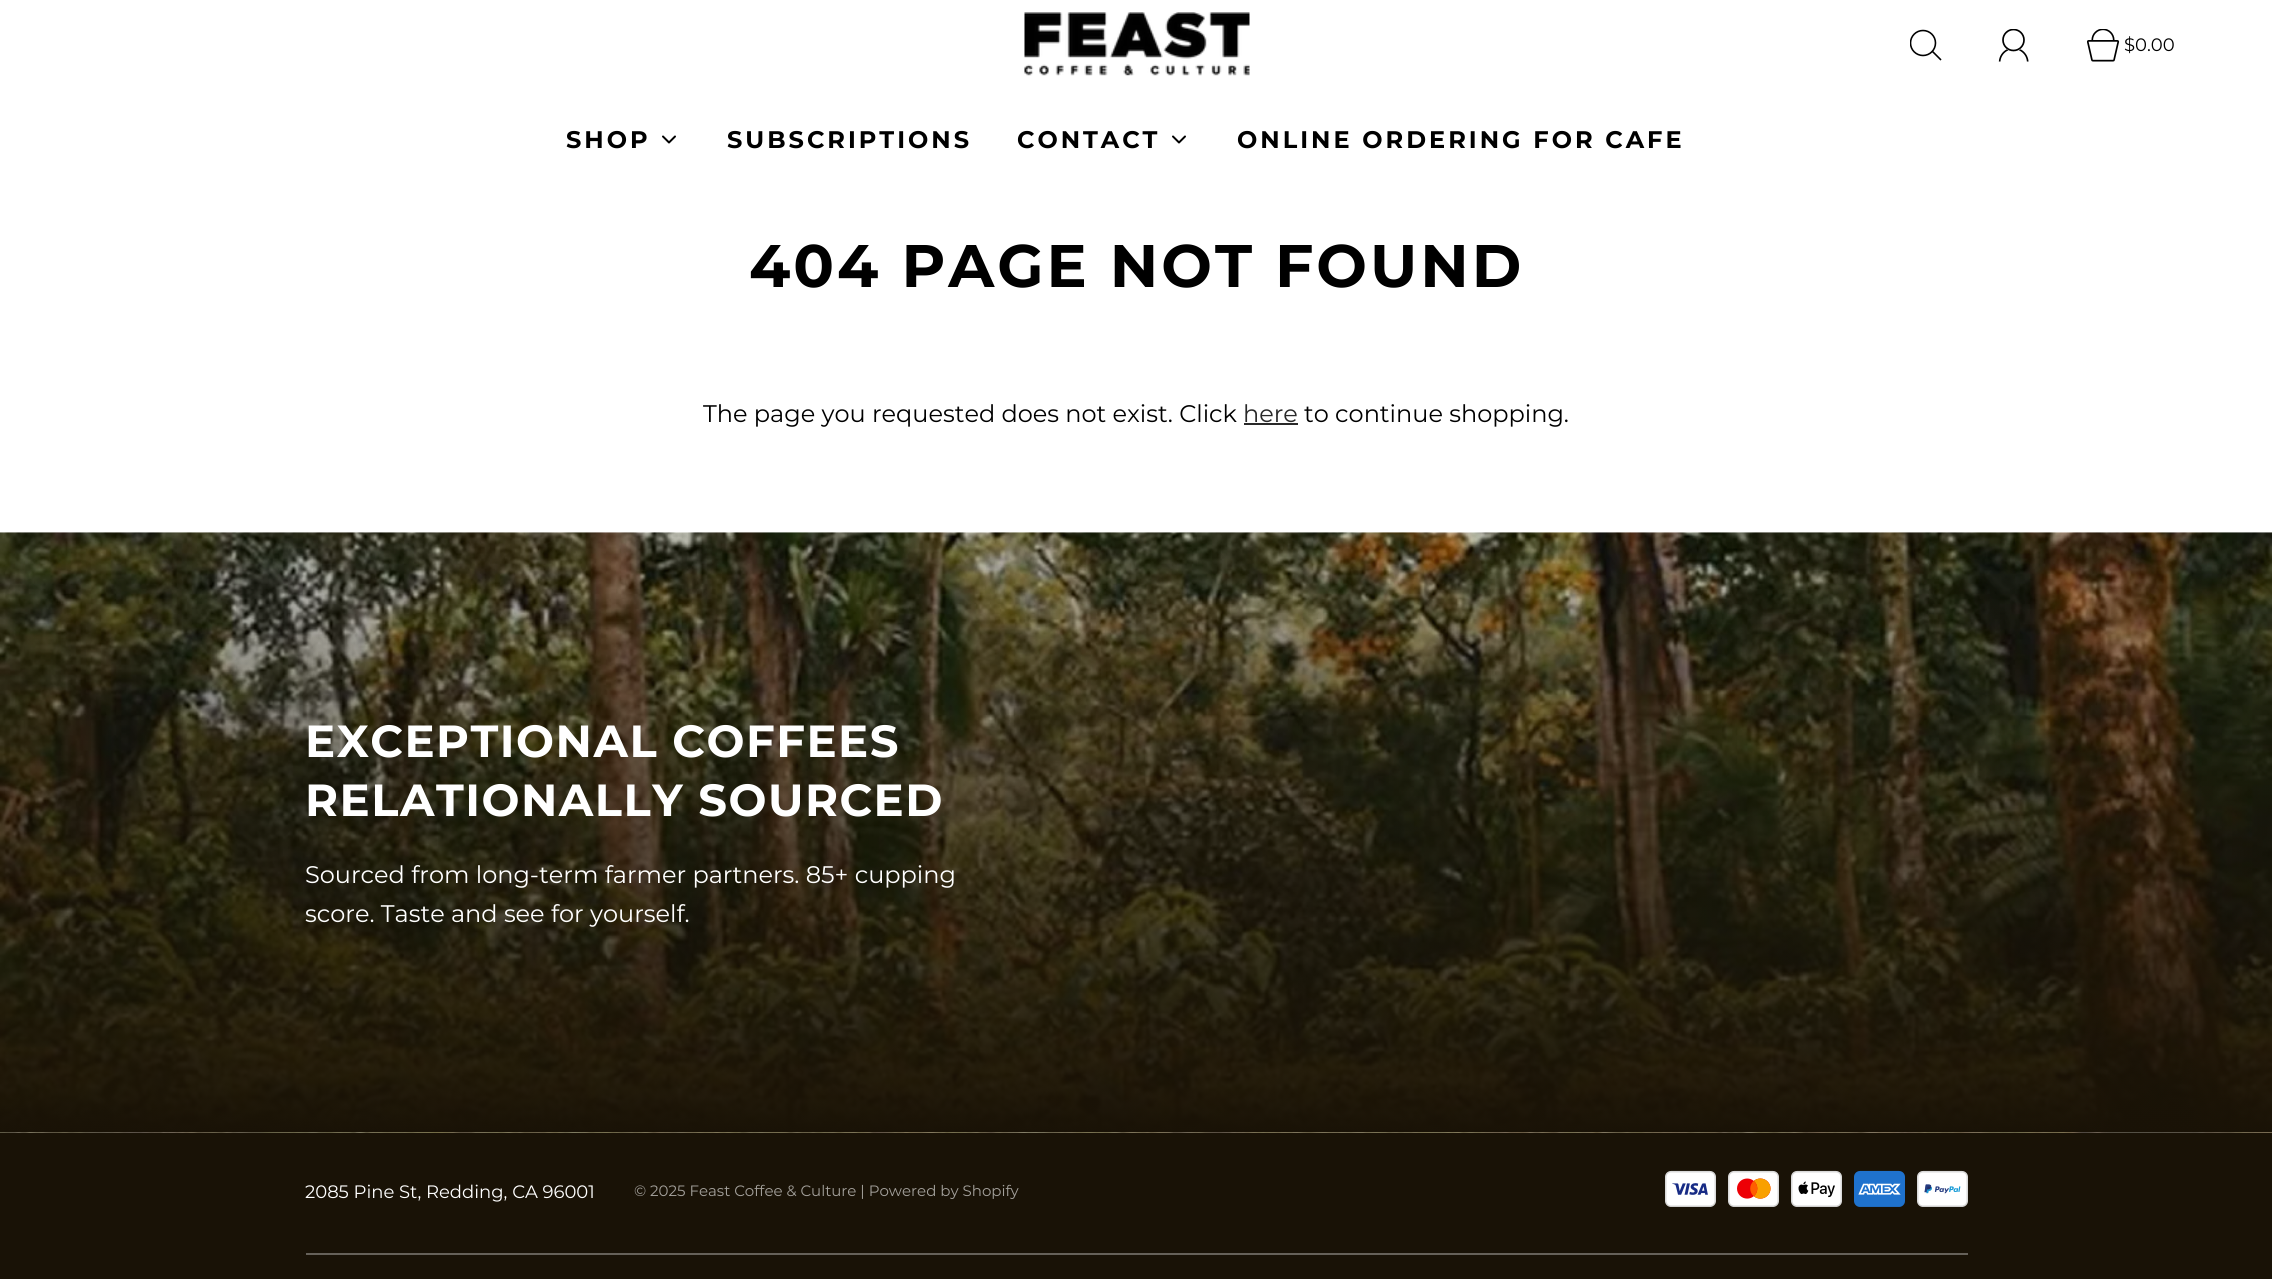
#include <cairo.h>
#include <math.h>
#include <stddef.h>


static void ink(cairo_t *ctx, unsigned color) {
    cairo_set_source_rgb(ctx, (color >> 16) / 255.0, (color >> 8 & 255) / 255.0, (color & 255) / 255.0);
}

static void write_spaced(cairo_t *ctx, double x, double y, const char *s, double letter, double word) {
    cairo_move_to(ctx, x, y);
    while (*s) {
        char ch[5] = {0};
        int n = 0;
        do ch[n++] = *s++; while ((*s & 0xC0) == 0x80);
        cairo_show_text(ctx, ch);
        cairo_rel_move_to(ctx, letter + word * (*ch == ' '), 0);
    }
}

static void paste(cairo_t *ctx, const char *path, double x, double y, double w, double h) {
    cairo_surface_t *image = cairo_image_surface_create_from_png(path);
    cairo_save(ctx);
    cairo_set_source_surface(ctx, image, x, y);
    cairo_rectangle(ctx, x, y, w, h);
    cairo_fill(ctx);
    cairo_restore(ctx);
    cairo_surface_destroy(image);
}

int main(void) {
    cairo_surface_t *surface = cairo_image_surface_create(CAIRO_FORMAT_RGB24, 2272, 1279);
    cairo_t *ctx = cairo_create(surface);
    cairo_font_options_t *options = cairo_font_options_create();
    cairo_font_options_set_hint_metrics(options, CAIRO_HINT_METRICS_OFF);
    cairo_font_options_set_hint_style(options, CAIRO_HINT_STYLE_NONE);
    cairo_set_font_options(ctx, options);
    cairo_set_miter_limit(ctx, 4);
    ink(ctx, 0xFFFFFF);
    cairo_paint(ctx);
    paste(ctx, "media/1.png", 1024, 12, 226, 64);
    cairo_save(ctx);
    cairo_rectangle(ctx, 1910, 29, 33, 33);
    cairo_clip(ctx);
    cairo_arc(ctx, 1923, 43, 12.5, 0, 2 * M_PI);
    ink(ctx, 0x000000);
    cairo_set_line_width(ctx, 1.6);
    cairo_stroke(ctx);
    cairo_restore(ctx);
    cairo_new_path(ctx);
    cairo_move_to(ctx, 1932, 51);
    cairo_line_to(ctx, 1941, 60);
    ink(ctx, 0x000000);
    cairo_set_line_width(ctx, 1.6);
    cairo_stroke(ctx);
    paste(ctx, "media/2.png", 1998, 29, 31, 33);
    paste(ctx, "media/3.png", 2087, 29, 33, 33);
    cairo_select_font_face(ctx, "Montserrat", CAIRO_FONT_SLANT_NORMAL, CAIRO_FONT_WEIGHT_NORMAL);
    cairo_set_font_size(ctx, 18);
    cairo_move_to(ctx, 2124, 51);
    cairo_show_text(ctx, "$0.00");
    cairo_select_font_face(ctx, "Montserrat", CAIRO_FONT_SLANT_NORMAL, CAIRO_FONT_WEIGHT_BOLD);
    cairo_set_font_size(ctx, 24);
    write_spaced(ctx, 566, 148, "SHOP", 3, 0);
    cairo_new_path(ctx);
    cairo_move_to(ctx, 663, 136.5);
    cairo_line_to(ctx, 669, 142.5);
    cairo_line_to(ctx, 675, 136.5);
    cairo_set_line_width(ctx, 2);
    cairo_set_line_cap(ctx, CAIRO_LINE_CAP_ROUND);
    cairo_set_line_join(ctx, CAIRO_LINE_JOIN_ROUND);
    cairo_stroke(ctx);
    write_spaced(ctx, 727, 148, "SUBSCRIPTIONS", 3, 0);
    write_spaced(ctx, 1017, 148, "CONTACT", 3, 0);
    cairo_new_path(ctx);
    cairo_move_to(ctx, 1173, 136.5);
    cairo_line_to(ctx, 1179, 142.5);
    cairo_line_to(ctx, 1185, 136.5);
    cairo_stroke(ctx);
    write_spaced(ctx, 1237, 148, "ONLINE ORDERING FOR CAFE", 3, 0);
    cairo_set_font_size(ctx, 60);
    write_spaced(ctx, 749, 287, "404 PAGE NOT FOUND", 3, 0);
    cairo_select_font_face(ctx, "Montserrat", CAIRO_FONT_SLANT_NORMAL, CAIRO_FONT_WEIGHT_NORMAL);
    cairo_set_font_size(ctx, 24);
    cairo_move_to(ctx, 703, 422);
    cairo_show_text(ctx, "The page you requested does not exist. Click");
    ink(ctx, 0x292929);
    cairo_move_to(ctx, 1243, 422);
    cairo_show_text(ctx, "here");
    cairo_rectangle(ctx, 1244, 423, 54, 2);
    cairo_fill(ctx);
    ink(ctx, 0x000000);
    cairo_move_to(ctx, 1304, 422);
    cairo_show_text(ctx, "to continue shopping.");
    paste(ctx, "media/4.png", 0, 532, 2272, 601);
    cairo_select_font_face(ctx, "Montserrat", CAIRO_FONT_SLANT_NORMAL, CAIRO_FONT_WEIGHT_BOLD);
    cairo_set_font_size(ctx, 45);
    ink(ctx, 0xFFFFFF);
    write_spaced(ctx, 305, 757, "EXCEPTIONAL COFFEES", 1.5, 0);
    write_spaced(ctx, 305, 816, "RELATIONALLY SOURCED", 1.5, 0);
    cairo_select_font_face(ctx, "Montserrat", CAIRO_FONT_SLANT_NORMAL, CAIRO_FONT_WEIGHT_NORMAL);
    cairo_set_font_size(ctx, 24);
    cairo_move_to(ctx, 305, 883);
    cairo_show_text(ctx, "Sourced from long-term farmer partners. 85+ cupping");
    cairo_move_to(ctx, 305, 922);
    cairo_show_text(ctx, "score. Taste and see for yourself.");
    ink(ctx, 0x191206);
    cairo_rectangle(ctx, 0, 1133, 2272, 146);
    cairo_fill(ctx);
    cairo_set_font_size(ctx, 18);
    ink(ctx, 0xFFFFFF);
    cairo_move_to(ctx, 305, 1198);
    cairo_show_text(ctx, "2085 Pine St, Redding, CA 96001");
    cairo_set_font_size(ctx, 15);
    ink(ctx, 0xA3A09B);
    cairo_move_to(ctx, 634, 1196);
    cairo_show_text(ctx, "© 2025 Feast Coffee & Culture | Powered by Shopify");
    paste(ctx, "media/5.png", 1665, 1170, 303, 37);
    ink(ctx, 0x666159);
    cairo_rectangle(ctx, 306, 1253, 1662, 2);
    cairo_fill(ctx);
    cairo_surface_write_to_png(surface, "image.png");
    cairo_font_options_destroy(options);
    cairo_destroy(ctx);
    cairo_surface_destroy(surface);
    return 0;
}
